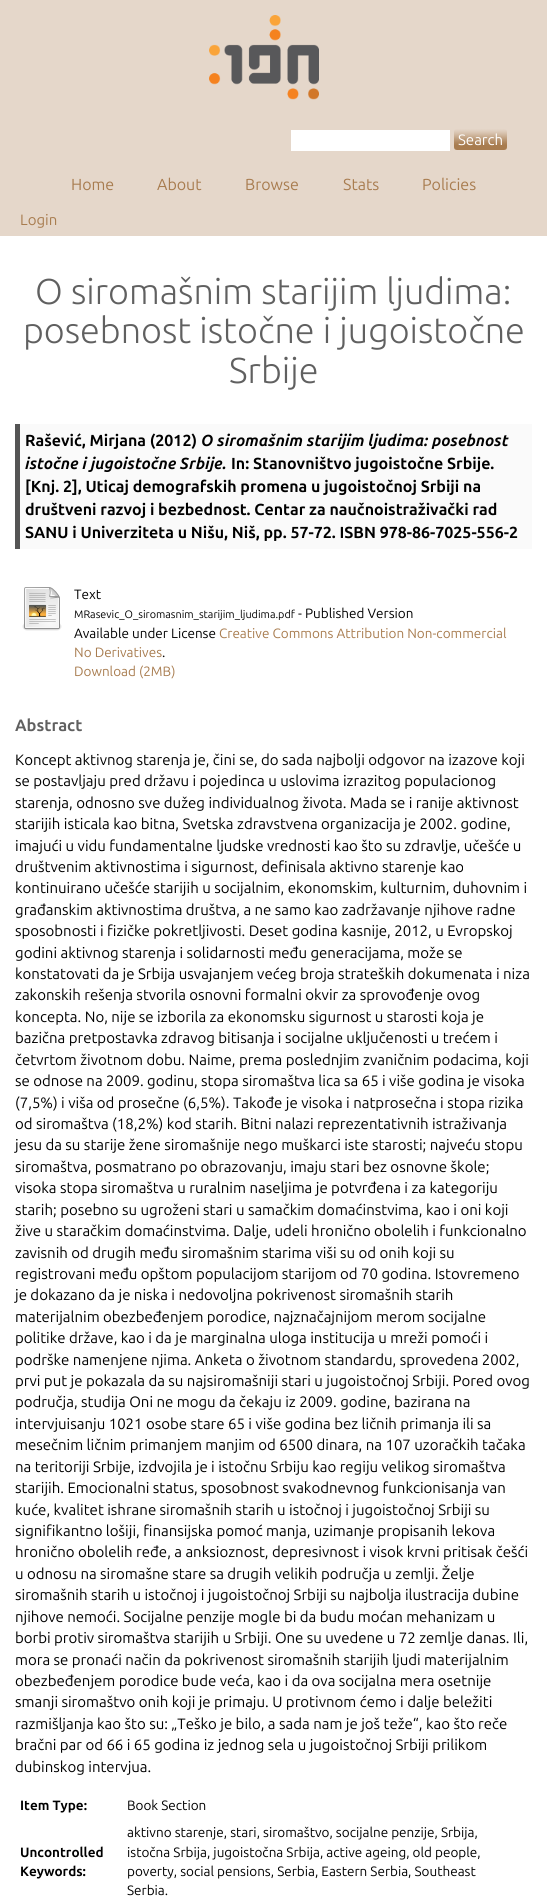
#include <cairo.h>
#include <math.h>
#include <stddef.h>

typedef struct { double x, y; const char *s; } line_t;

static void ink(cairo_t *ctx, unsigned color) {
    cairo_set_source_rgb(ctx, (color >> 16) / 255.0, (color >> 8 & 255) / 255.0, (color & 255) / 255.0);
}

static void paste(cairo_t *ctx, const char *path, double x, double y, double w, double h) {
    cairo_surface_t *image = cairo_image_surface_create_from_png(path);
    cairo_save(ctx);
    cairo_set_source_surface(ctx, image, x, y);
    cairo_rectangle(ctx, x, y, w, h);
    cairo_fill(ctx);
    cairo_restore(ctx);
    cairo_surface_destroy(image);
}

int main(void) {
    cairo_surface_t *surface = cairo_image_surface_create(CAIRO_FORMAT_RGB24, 547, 1900);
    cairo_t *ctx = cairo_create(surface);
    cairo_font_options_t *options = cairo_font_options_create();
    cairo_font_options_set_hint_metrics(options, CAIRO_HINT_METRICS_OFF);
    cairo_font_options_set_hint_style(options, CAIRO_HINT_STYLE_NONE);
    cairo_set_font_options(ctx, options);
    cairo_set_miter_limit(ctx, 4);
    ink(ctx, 0xFFFFFF);
    cairo_paint(ctx);
    ink(ctx, 0xE5D7CA);
    cairo_rectangle(ctx, 0, 0, 547, 236);
    cairo_fill(ctx);
    paste(ctx, "media/1.png", 209, 15, 110, 85);
    ink(ctx, 0xFFFFFF);
    cairo_rectangle(ctx, 291, 130, 159, 21);
    cairo_fill(ctx);
    paste(ctx, "media/2.png", 454, 129, 53, 21);
    cairo_select_font_face(ctx, "Ubuntu", CAIRO_FONT_SLANT_NORMAL, CAIRO_FONT_WEIGHT_NORMAL);
    cairo_set_font_size(ctx, 15);
    cairo_move_to(ctx, 458, 145);
    cairo_show_text(ctx, "Search");
    cairo_set_font_size(ctx, 16);
    ink(ctx, 0xA87C4F);
    {
        static const line_t items[] = {
            {71, 190, "Home"},
            {157, 190, "About"},
            {245, 190, "Browse"},
            {343, 190, "Stats"},
            {422, 190, "Policies"},
        };
        for (size_t i = 0; i < sizeof items / sizeof *items; i++) {
            cairo_move_to(ctx, items[i].x, items[i].y);
            cairo_show_text(ctx, items[i].s);
        }
    }
    cairo_set_font_size(ctx, 15);
    cairo_move_to(ctx, 20, 225);
    cairo_show_text(ctx, "Login");
    cairo_select_font_face(ctx, "Ubuntu Light", CAIRO_FONT_SLANT_NORMAL, CAIRO_FONT_WEIGHT_NORMAL);
    cairo_set_font_size(ctx, 36);
    ink(ctx, 0x606060);
    {
        static const line_t items[] = {
            {35, 304, "O siromašnim starijim ljudima:"},
            {23, 343, "posebnost istočne i jugoistočne"},
            {229, 383, "Srbije"},
        };
        for (size_t i = 0; i < sizeof items / sizeof *items; i++) {
            cairo_move_to(ctx, items[i].x, items[i].y);
            cairo_show_text(ctx, items[i].s);
        }
    }
    ink(ctx, 0xFAFAFA);
    cairo_rectangle(ctx, 20, 424, 512, 125);
    cairo_fill(ctx);
    ink(ctx, 0x555555);
    cairo_rectangle(ctx, 15, 424, 5, 125);
    cairo_fill(ctx);
    cairo_select_font_face(ctx, "Ubuntu", CAIRO_FONT_SLANT_NORMAL, CAIRO_FONT_WEIGHT_BOLD);
    cairo_set_font_size(ctx, 16);
    ink(ctx, 0x000000);
    cairo_move_to(ctx, 25, 446);
    cairo_show_text(ctx, "Rašević, Mirjana (2012)");
    cairo_select_font_face(ctx, "Ubuntu", CAIRO_FONT_SLANT_ITALIC, CAIRO_FONT_WEIGHT_BOLD);
    cairo_move_to(ctx, 201, 446);
    cairo_show_text(ctx, "O siromašnim starijim ljudima: posebnost");
    cairo_move_to(ctx, 25, 469);
    cairo_show_text(ctx, "istočne i jugoistočne Srbije.");
    cairo_select_font_face(ctx, "Ubuntu", CAIRO_FONT_SLANT_NORMAL, CAIRO_FONT_WEIGHT_BOLD);
    {
        static const line_t items[] = {
            {231, 469, "In: Stanovništvo jugoistočne Srbije."},
            {25, 492, "[Knj. 2], Uticaj demografskih promena u jugoistočnoj Srbiji na"},
            {25, 515, "društveni razvoj i bezbednost. Centar za naučnoistraživački rad"},
            {25, 538, "SANU i Univerziteta u Nišu, Niš, pp. 57-72. ISBN 978-86-7025-556-2"},
        };
        for (size_t i = 0; i < sizeof items / sizeof *items; i++) {
            cairo_move_to(ctx, items[i].x, items[i].y);
            cairo_show_text(ctx, items[i].s);
        }
    }
    paste(ctx, "media/3.png", 22, 587, 40, 44);
    cairo_select_font_face(ctx, "Ubuntu", CAIRO_FONT_SLANT_NORMAL, CAIRO_FONT_WEIGHT_NORMAL);
    cairo_set_font_size(ctx, 13.5);
    cairo_move_to(ctx, 74, 599);
    cairo_show_text(ctx, "Text");
    cairo_set_font_size(ctx, 10.8);
    cairo_move_to(ctx, 74, 618);
    cairo_show_text(ctx, "MRasevic_O_siromasnim_starijim_ljudima.pdf");
    cairo_set_font_size(ctx, 13.5);
    cairo_move_to(ctx, 298, 618);
    cairo_show_text(ctx, "- Published Version");
    cairo_move_to(ctx, 74, 638);
    cairo_show_text(ctx, "Available under License");
    ink(ctx, 0xA87C4F);
    cairo_move_to(ctx, 219, 638);
    cairo_show_text(ctx, "Creative Commons Attribution Non-commercial");
    cairo_move_to(ctx, 74, 657);
    cairo_show_text(ctx, "No Derivatives");
    ink(ctx, 0x000000);
    cairo_move_to(ctx, 162, 657);
    cairo_show_text(ctx, ".");
    ink(ctx, 0xA87C4F);
    cairo_move_to(ctx, 74, 676);
    cairo_show_text(ctx, "Download (2MB)");
    cairo_select_font_face(ctx, "Ubuntu", CAIRO_FONT_SLANT_NORMAL, CAIRO_FONT_WEIGHT_BOLD);
    cairo_set_font_size(ctx, 16.5);
    ink(ctx, 0x606060);
    cairo_move_to(ctx, 15, 731);
    cairo_show_text(ctx, "Abstract");
    cairo_select_font_face(ctx, "Ubuntu", CAIRO_FONT_SLANT_NORMAL, CAIRO_FONT_WEIGHT_NORMAL);
    cairo_set_font_size(ctx, 15);
    ink(ctx, 0x000000);
    {
        static const line_t items[] = {
            {15, 765, "Koncept aktivnog starenja je, čini se, do sada najbolji odgovor na izazove koji"},
            {15, 786, "se postavljaju pred državu i pojedinca u uslovima izrazitog populacionog"},
            {15, 808, "starenja, odnosno sve dužeg individualnog života. Mada se i ranije aktivnost"},
            {15, 829, "starijih isticala kao bitna, Svetska zdravstvena organizacija je 2002. godine,"},
            {15, 851, "imajući u vidu fundamentalne ljudske vrednosti kao što su zdravlje, učešće u"},
            {15, 872, "društvenim aktivnostima i sigurnost, definisala aktivno starenje kao"},
            {15, 893, "kontinuirano učešće starijih u socijalnim, ekonomskim, kulturnim, duhovnim i"},
            {15, 915, "građanskim aktivnostima društva, a ne samo kao zadržavanje njihove radne"},
            {15, 936, "sposobnosti i fizičke pokretljivosti. Deset godina kasnije, 2012, u Evropskoj"},
            {15, 958, "godini aktivnog starenja i solidarnosti među generacijama, može se"},
            {15, 979, "konstatovati da je Srbija usvajanjem većeg broja strateških dokumenata i niza"},
            {15, 1000, "zakonskih rešenja stvorila osnovni formalni okvir za sprovođenje ovog"},
            {15, 1022, "koncepta. No, nije se izborila za ekonomsku sigurnost u starosti koja je"},
            {15, 1043, "bazična pretpostavka zdravog bitisanja i socijalne uključenosti u trećem i"},
            {15, 1065, "četvrtom životnom dobu. Naime, prema poslednjim zvaničnim podacima, koji"},
            {15, 1086, "se odnose na 2009. godinu, stopa siromaštva lica sa 65 i više godina je visoka"},
            {15, 1108, "(7,5%) i viša od prosečne (6,5%). Takođe je visoka i natprosečna i stopa rizika"},
            {15, 1129, "od siromaštva (18,2%) kod starih. Bitni nalazi reprezentativnih istraživanja"},
            {15, 1150, "jesu da su starije žene siromašnije nego muškarci iste starosti; najveću stopu"},
            {15, 1172, "siromaštva, posmatrano po obrazovanju, imaju stari bez osnovne škole;"},
            {15, 1193, "visoka stopa siromaštva u ruralnim naseljima je potvrđena i za kategoriju"},
            {15, 1215, "starih; posebno su ugroženi stari u samačkim domaćinstvima, kao i oni koji"},
            {15, 1236, "žive u staračkim domaćinstvima. Dalje, udeli hronično obolelih i funkcionalno"},
            {15, 1258, "zavisnih od drugih među siromašnim starima viši su od onih koji su"},
            {15, 1279, "registrovani među opštom populacijom starijom od 70 godina. Istovremeno"},
            {15, 1300, "je dokazano da je niska i nedovoljna pokrivenost siromašnih starih"},
            {15, 1322, "materijalnim obezbeđenjem porodice, najznačajnijom merom socijalne"},
            {15, 1343, "politike države, kao i da je marginalna uloga institucija u mreži pomoći i"},
            {15, 1365, "podrške namenjene njima. Anketa o životnom standardu, sprovedena 2002,"},
            {15, 1386, "prvi put je pokazala da su najsiromašniji stari u jugoistočnoj Srbiji. Pored ovog"},
            {15, 1407, "područja, studija Oni ne mogu da čekaju iz 2009. godine, bazirana na"},
            {15, 1429, "intervjuisanju 1021 osobe stare 65 i više godina bez ličnih primanja ili sa"},
            {15, 1450, "mesečnim ličnim primanjem manjim od 6500 dinara, na 107 uzoračkih tačaka"},
            {15, 1472, "na teritoriji Srbije, izdvojila je i istočnu Srbiju kao regiju velikog siromaštva"},
            {15, 1493, "starijih. Emocionalni status, sposobnost svakodnevnog funkcionisanja van"},
            {15, 1515, "kuće, kvalitet ishrane siromašnih starih u istočnoj i jugoistočnoj Srbiji su"},
            {15, 1536, "signifikantno lošiji, finansijska pomoć manja, uzimanje propisanih lekova"},
            {15, 1557, "hronično obolelih ređe, a anksioznost, depresivnost i visok krvni pritisak češći"},
            {15, 1579, "u odnosu na siromašne stare sa drugih velikih područja u zemlji. Želje"},
            {15, 1600, "siromašnih starih u istočnoj i jugoistočnoj Srbiji su najbolja ilustracija dubine"},
            {15, 1622, "njihove nemoći. Socijalne penzije mogle bi da budu moćan mehanizam u"},
            {15, 1643, "borbi protiv siromaštva starijih u Srbiji. One su uvedene u 72 zemlje danas. Ili,"},
            {15, 1665, "mora se pronaći način da pokrivenost siromašnih starijih ljudi materijalnim"},
            {15, 1686, "obezbeđenjem porodice bude veća, kao i da ova socijalna mera osetnije"},
            {15, 1707, "smanji siromaštvo onih koji je primaju. U protivnom ćemo i dalje beležiti"},
            {15, 1729, "razmišljanja kao što su: „Teško je bilo, a sada nam je još teže“, kao što reče"},
            {15, 1750, "bračni par od 66 i 65 godina iz jednog sela u jugoistočnoj Srbiji prilikom"},
            {15, 1772, "dubinskog intervjua."},
        };
        for (size_t i = 0; i < sizeof items / sizeof *items; i++) {
            cairo_move_to(ctx, items[i].x, items[i].y);
            cairo_show_text(ctx, items[i].s);
        }
    }
    cairo_select_font_face(ctx, "Ubuntu", CAIRO_FONT_SLANT_NORMAL, CAIRO_FONT_WEIGHT_BOLD);
    cairo_set_font_size(ctx, 13.5);
    cairo_move_to(ctx, 20, 1810);
    cairo_show_text(ctx, "Item Type:");
    cairo_select_font_face(ctx, "Ubuntu", CAIRO_FONT_SLANT_NORMAL, CAIRO_FONT_WEIGHT_NORMAL);
    cairo_move_to(ctx, 127, 1810);
    cairo_show_text(ctx, "Book Section");
    cairo_select_font_face(ctx, "Ubuntu", CAIRO_FONT_SLANT_NORMAL, CAIRO_FONT_WEIGHT_BOLD);
    cairo_move_to(ctx, 20, 1857);
    cairo_show_text(ctx, "Uncontrolled");
    cairo_move_to(ctx, 20, 1876);
    cairo_show_text(ctx, "Keywords:");
    cairo_select_font_face(ctx, "Ubuntu", CAIRO_FONT_SLANT_NORMAL, CAIRO_FONT_WEIGHT_NORMAL);
    {
        static const line_t items[] = {
            {127, 1837, "aktivno starenje, stari, siromaštvo, socijalne penzije, Srbija,"},
            {127, 1857, "istočna Srbija, jugoistočna Srbija, active ageing, old people,"},
            {127, 1876, "poverty, social pensions, Serbia, Eastern Serbia, Southeast"},
            {127, 1895, "Serbia."},
        };
        for (size_t i = 0; i < sizeof items / sizeof *items; i++) {
            cairo_move_to(ctx, items[i].x, items[i].y);
            cairo_show_text(ctx, items[i].s);
        }
    }
    cairo_surface_write_to_png(surface, "image.png");
    cairo_font_options_destroy(options);
    cairo_destroy(ctx);
    cairo_surface_destroy(surface);
    return 0;
}
